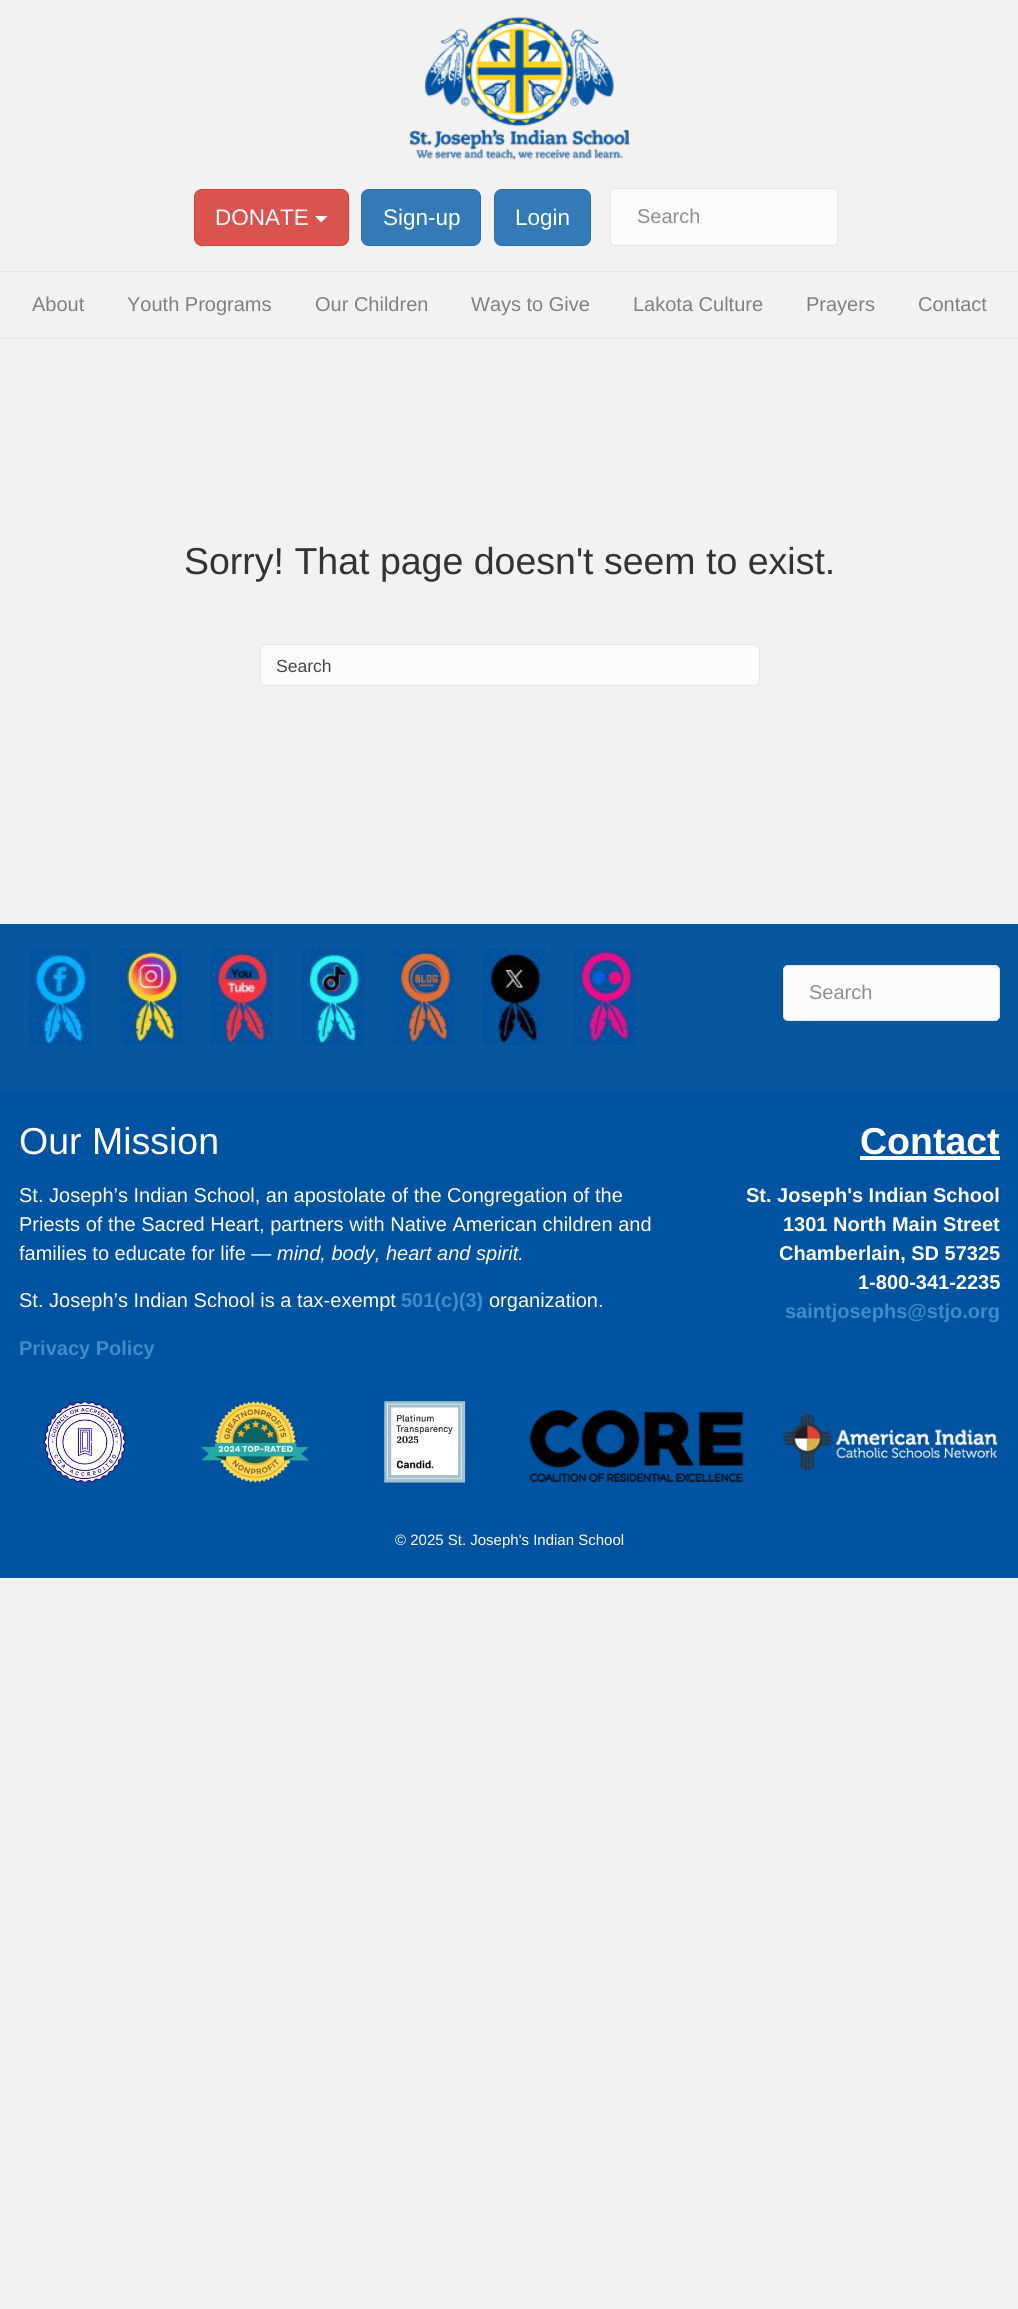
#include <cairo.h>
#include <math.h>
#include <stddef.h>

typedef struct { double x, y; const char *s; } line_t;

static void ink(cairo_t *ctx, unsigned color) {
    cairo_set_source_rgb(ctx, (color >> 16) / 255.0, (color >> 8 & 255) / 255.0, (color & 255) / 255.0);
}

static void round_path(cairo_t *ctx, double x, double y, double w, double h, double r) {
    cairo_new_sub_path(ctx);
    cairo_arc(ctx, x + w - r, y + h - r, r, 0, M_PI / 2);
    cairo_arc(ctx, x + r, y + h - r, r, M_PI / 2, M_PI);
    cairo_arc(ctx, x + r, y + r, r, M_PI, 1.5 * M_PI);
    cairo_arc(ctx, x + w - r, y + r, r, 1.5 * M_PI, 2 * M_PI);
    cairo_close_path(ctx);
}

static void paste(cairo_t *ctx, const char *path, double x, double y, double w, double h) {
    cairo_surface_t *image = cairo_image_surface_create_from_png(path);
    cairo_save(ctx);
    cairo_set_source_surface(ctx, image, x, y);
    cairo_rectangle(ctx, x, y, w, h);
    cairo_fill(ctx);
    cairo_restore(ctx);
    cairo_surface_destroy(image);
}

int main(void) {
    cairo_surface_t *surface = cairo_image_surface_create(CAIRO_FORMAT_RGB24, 1018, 2309);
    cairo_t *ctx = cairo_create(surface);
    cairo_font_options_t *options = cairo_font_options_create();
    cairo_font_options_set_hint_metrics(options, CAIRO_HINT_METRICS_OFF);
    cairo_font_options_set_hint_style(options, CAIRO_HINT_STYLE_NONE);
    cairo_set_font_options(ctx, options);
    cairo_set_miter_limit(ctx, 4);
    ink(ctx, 0xF2F2F2);
    cairo_paint(ctx);
    paste(ctx, "media/1.png", 409, 17, 222, 143);
    ink(ctx, 0xD9534F);
    round_path(ctx, 194.5, 189.5, 154, 56, 7.5);
    cairo_fill_preserve(ctx);
    ink(ctx, 0xD43F3A);
    cairo_set_line_width(ctx, 1);
    cairo_stroke(ctx);
    cairo_select_font_face(ctx, "Liberation Sans", CAIRO_FONT_SLANT_NORMAL, CAIRO_FONT_WEIGHT_NORMAL);
    cairo_set_font_size(ctx, 22.5);
    ink(ctx, 0xFFFFFF);
    cairo_move_to(ctx, 215, 225);
    cairo_show_text(ctx, "DONATE");
    cairo_new_path(ctx);
    cairo_move_to(ctx, 315, 216);
    cairo_line_to(ctx, 327.5, 216);
    cairo_line_to(ctx, 321, 222.5);
    cairo_close_path(ctx);
    cairo_fill(ctx);
    ink(ctx, 0x337AB7);
    round_path(ctx, 361.5, 189.5, 119, 56, 7.5);
    cairo_fill_preserve(ctx);
    ink(ctx, 0x2E6DA4);
    cairo_stroke(ctx);
    ink(ctx, 0xFFFFFF);
    cairo_move_to(ctx, 383, 225);
    cairo_show_text(ctx, "Sign-up");
    ink(ctx, 0x337AB7);
    round_path(ctx, 494.5, 189.5, 96, 56, 7.5);
    cairo_fill_preserve(ctx);
    ink(ctx, 0x2E6DA4);
    cairo_stroke(ctx);
    ink(ctx, 0xFFFFFF);
    cairo_move_to(ctx, 515, 225);
    cairo_show_text(ctx, "Login");
    ink(ctx, 0xFCFCFC);
    round_path(ctx, 610.5, 188.5, 227, 57, 4.5);
    cairo_fill_preserve(ctx);
    ink(ctx, 0xE6E6E6);
    cairo_stroke(ctx);
    cairo_set_font_size(ctx, 20);
    ink(ctx, 0x8E8E8E);
    cairo_move_to(ctx, 637, 223);
    cairo_show_text(ctx, "Search");
    ink(ctx, 0xE6E6E6);
    cairo_rectangle(ctx, 0, 271, 1018, 1);
    cairo_fill(ctx);
    cairo_rectangle(ctx, 0, 338, 1018, 1);
    cairo_fill(ctx);
    ink(ctx, 0x808080);
    {
        static const line_t items[] = {
            {32, 311, "About"},
            {127, 311, "Youth Programs"},
            {315, 311, "Our Children"},
            {471, 311, "Ways to Give"},
            {633, 311, "Lakota Culture"},
            {806, 311, "Prayers"},
            {918, 311, "Contact"},
        };
        for (size_t i = 0; i < sizeof items / sizeof *items; i++) {
            cairo_move_to(ctx, items[i].x, items[i].y);
            cairo_show_text(ctx, items[i].s);
        }
    }
    cairo_set_font_size(ctx, 37.5);
    ink(ctx, 0x333333);
    cairo_move_to(ctx, 184, 574);
    cairo_show_text(ctx, "Sorry! That page doesn't seem to exist.");
    ink(ctx, 0xFCFCFC);
    round_path(ctx, 260.5, 644.5, 499, 41, 4.5);
    cairo_fill_preserve(ctx);
    ink(ctx, 0xE6E6E6);
    cairo_stroke(ctx);
    cairo_set_font_size(ctx, 17.5);
    ink(ctx, 0x444444);
    cairo_move_to(ctx, 276, 672);
    cairo_show_text(ctx, "Search");
    ink(ctx, 0x08569E);
    cairo_rectangle(ctx, 0, 924, 1018, 166);
    cairo_fill(ctx);
    paste(ctx, "media/2.png", 29, 949, 62, 96);
    paste(ctx, "media/3.png", 120, 948, 63, 97);
    paste(ctx, "media/4.png", 210, 948, 63, 97);
    paste(ctx, "media/5.png", 301, 948, 63, 97);
    paste(ctx, "media/6.png", 392, 948, 63, 97);
    paste(ctx, "media/7.png", 482, 948, 63, 97);
    paste(ctx, "media/8.png", 574, 949, 62, 96);
    ink(ctx, 0xFCFCFC);
    round_path(ctx, 783.5, 965.5, 216, 55, 4.5);
    cairo_fill_preserve(ctx);
    ink(ctx, 0xE6E6E6);
    cairo_stroke(ctx);
    cairo_set_font_size(ctx, 20);
    ink(ctx, 0x8E8E8E);
    cairo_move_to(ctx, 809, 999);
    cairo_show_text(ctx, "Search");
    ink(ctx, 0x0053A0);
    cairo_rectangle(ctx, 0, 1090, 1018, 488);
    cairo_fill(ctx);
    cairo_set_font_size(ctx, 37.5);
    ink(ctx, 0xFFFFFF);
    cairo_move_to(ctx, 19, 1154);
    cairo_show_text(ctx, "Our Mission");
    cairo_set_font_size(ctx, 20);
    {
        static const line_t items[] = {
            {19, 1202, "St. Joseph’s Indian School, an apostolate of the Congregation of the"},
            {19, 1231, "Priests of the Sacred Heart, partners with Native American children and"},
            {19, 1260, "families to educate for life —"},
        };
        for (size_t i = 0; i < sizeof items / sizeof *items; i++) {
            cairo_move_to(ctx, items[i].x, items[i].y);
            cairo_show_text(ctx, items[i].s);
        }
    }
    cairo_select_font_face(ctx, "Liberation Sans", CAIRO_FONT_SLANT_ITALIC, CAIRO_FONT_WEIGHT_NORMAL);
    cairo_move_to(ctx, 277, 1260);
    cairo_show_text(ctx, "mind, body, heart and spirit.");
    cairo_select_font_face(ctx, "Liberation Sans", CAIRO_FONT_SLANT_NORMAL, CAIRO_FONT_WEIGHT_NORMAL);
    cairo_move_to(ctx, 19, 1307);
    cairo_show_text(ctx, "St. Joseph’s Indian School is a tax-exempt");
    cairo_select_font_face(ctx, "Liberation Sans", CAIRO_FONT_SLANT_NORMAL, CAIRO_FONT_WEIGHT_BOLD);
    ink(ctx, 0x428BCA);
    cairo_move_to(ctx, 401, 1307);
    cairo_show_text(ctx, "501(c)(3)");
    cairo_select_font_face(ctx, "Liberation Sans", CAIRO_FONT_SLANT_NORMAL, CAIRO_FONT_WEIGHT_NORMAL);
    ink(ctx, 0xFFFFFF);
    cairo_move_to(ctx, 489, 1307);
    cairo_show_text(ctx, "organization.");
    cairo_select_font_face(ctx, "Liberation Sans", CAIRO_FONT_SLANT_NORMAL, CAIRO_FONT_WEIGHT_BOLD);
    ink(ctx, 0x428BCA);
    cairo_move_to(ctx, 19, 1355);
    cairo_show_text(ctx, "Privacy Policy");
    cairo_set_font_size(ctx, 37.5);
    ink(ctx, 0xFFFFFF);
    cairo_move_to(ctx, 860, 1154);
    cairo_show_text(ctx, "Contact");
    cairo_rectangle(ctx, 860, 1156, 140, 4);
    cairo_fill(ctx);
    cairo_set_font_size(ctx, 20);
    {
        static const line_t items[] = {
            {746, 1202, "St. Joseph's Indian School"},
            {783, 1231, "1301 North Main Street"},
            {779, 1260, "Chamberlain, SD 57325"},
            {858, 1289, "1-800-341-2235"},
        };
        for (size_t i = 0; i < sizeof items / sizeof *items; i++) {
            cairo_move_to(ctx, items[i].x, items[i].y);
            cairo_show_text(ctx, items[i].s);
        }
    }
    ink(ctx, 0x428BCA);
    cairo_move_to(ctx, 785, 1318);
    cairo_show_text(ctx, "saintjosephs@stjo.org");
    paste(ctx, "media/9.png", 44, 1401, 82, 82);
    paste(ctx, "media/10.png", 199, 1401, 111, 82);
    paste(ctx, "media/11.png", 384, 1401, 82, 82);
    paste(ctx, "media/12.png", 529, 1410, 215, 72);
    paste(ctx, "media/13.png", 782, 1413, 216, 58);
    cairo_select_font_face(ctx, "Liberation Sans", CAIRO_FONT_SLANT_NORMAL, CAIRO_FONT_WEIGHT_NORMAL);
    cairo_set_font_size(ctx, 15);
    ink(ctx, 0xFFFFFF);
    cairo_move_to(ctx, 395, 1545);
    cairo_show_text(ctx, "© 2025 St. Joseph's Indian School");
    cairo_surface_write_to_png(surface, "image.png");
    cairo_font_options_destroy(options);
    cairo_destroy(ctx);
    cairo_surface_destroy(surface);
    return 0;
}
